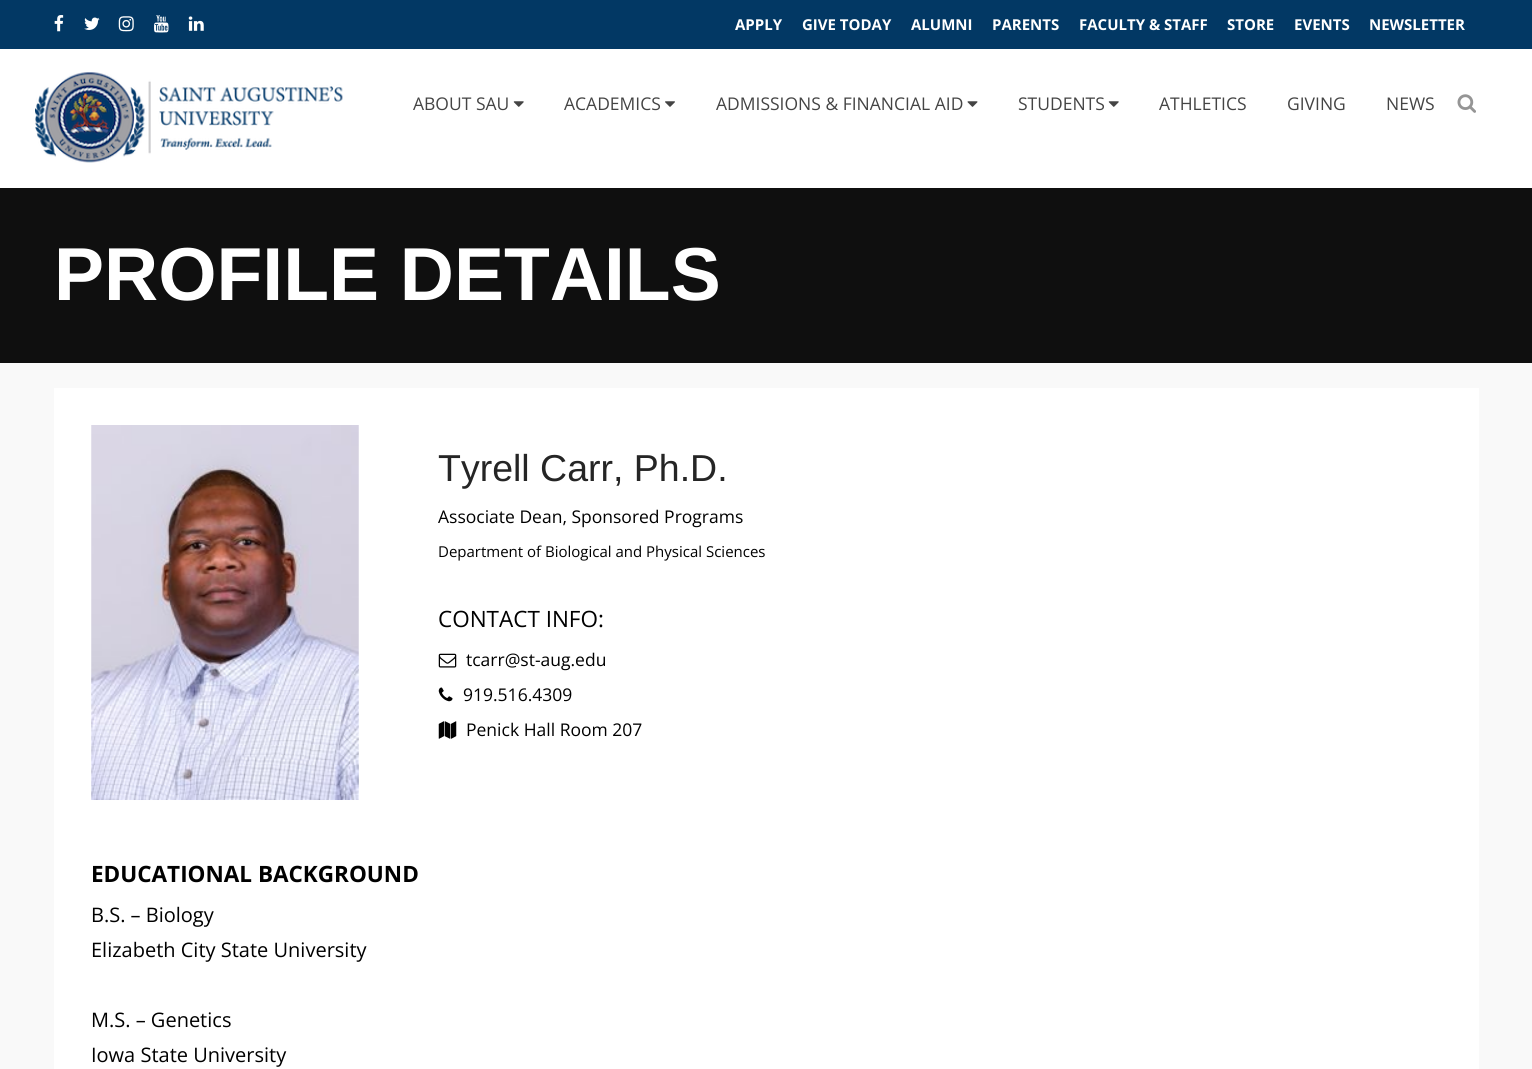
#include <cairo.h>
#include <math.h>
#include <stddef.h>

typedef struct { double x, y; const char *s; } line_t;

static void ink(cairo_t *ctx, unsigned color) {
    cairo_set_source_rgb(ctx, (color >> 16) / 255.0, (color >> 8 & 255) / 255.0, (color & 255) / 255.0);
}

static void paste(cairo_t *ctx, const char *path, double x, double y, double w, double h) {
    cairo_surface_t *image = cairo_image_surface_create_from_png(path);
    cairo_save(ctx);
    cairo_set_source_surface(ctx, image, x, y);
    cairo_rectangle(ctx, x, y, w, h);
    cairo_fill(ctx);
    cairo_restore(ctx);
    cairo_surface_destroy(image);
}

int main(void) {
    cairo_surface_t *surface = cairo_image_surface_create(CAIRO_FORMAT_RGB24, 1532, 1069);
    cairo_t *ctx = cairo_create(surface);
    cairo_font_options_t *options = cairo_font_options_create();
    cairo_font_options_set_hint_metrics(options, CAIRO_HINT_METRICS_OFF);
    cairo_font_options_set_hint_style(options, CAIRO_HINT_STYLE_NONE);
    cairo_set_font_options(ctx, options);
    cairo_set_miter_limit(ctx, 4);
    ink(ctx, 0xF9F9F9);
    cairo_paint(ctx);
    ink(ctx, 0x023864);
    cairo_rectangle(ctx, 0, 0, 1532, 49);
    cairo_fill(ctx);
    paste(ctx, "media/1.png", 54, 15, 10, 17);
    paste(ctx, "media/2.png", 84, 17, 16, 13);
    paste(ctx, "media/3.png", 118, 16, 16, 16);
    paste(ctx, "media/4.png", 154, 15, 15, 18);
    paste(ctx, "media/5.png", 188, 16, 16, 15);
    cairo_select_font_face(ctx, "Open Sans", CAIRO_FONT_SLANT_NORMAL, CAIRO_FONT_WEIGHT_BOLD);
    cairo_set_font_size(ctx, 15);
    ink(ctx, 0xFFFFFF);
    {
        static const line_t items[] = {
            {735, 30, "APPLY"},
            {802, 30, "GIVE TODAY"},
            {911, 30, "ALUMNI"},
            {992, 30, "PARENTS"},
            {1079, 30, "FACULTY & STAFF"},
            {1227, 30, "STORE"},
            {1294, 30, "EVENTS"},
            {1369, 30, "NEWSLETTER"},
        };
        for (size_t i = 0; i < sizeof items / sizeof *items; i++) {
            cairo_move_to(ctx, items[i].x, items[i].y);
            cairo_show_text(ctx, items[i].s);
        }
    }
    cairo_rectangle(ctx, 0, 49, 1532, 139);
    cairo_fill(ctx);
    paste(ctx, "media/6.png", 35, 72, 308, 91);
    cairo_select_font_face(ctx, "Open Sans", CAIRO_FONT_SLANT_NORMAL, CAIRO_FONT_WEIGHT_NORMAL);
    cairo_set_font_size(ctx, 17.5);
    ink(ctx, 0x444444);
    cairo_move_to(ctx, 413, 110);
    cairo_show_text(ctx, "ABOUT SAU");
    paste(ctx, "media/7.png", 513, 101, 11, 6);
    cairo_move_to(ctx, 564, 110);
    cairo_show_text(ctx, "ACADEMICS");
    paste(ctx, "media/8.png", 665, 101, 10, 6);
    cairo_move_to(ctx, 716, 110);
    cairo_show_text(ctx, "ADMISSIONS & FINANCIAL AID");
    paste(ctx, "media/9.png", 967, 101, 11, 6);
    cairo_move_to(ctx, 1018, 110);
    cairo_show_text(ctx, "STUDENTS");
    paste(ctx, "media/7.png", 1108, 101, 11, 6);
    {
        static const line_t items[] = {
            {1159, 110, "ATHLETICS"},
            {1287, 110, "GIVING"},
            {1386, 110, "NEWS"},
        };
        for (size_t i = 0; i < sizeof items / sizeof *items; i++) {
            cairo_move_to(ctx, items[i].x, items[i].y);
            cairo_show_text(ctx, items[i].s);
        }
    }
    paste(ctx, "media/10.png", 1457, 94, 19, 19);
    ink(ctx, 0x0F0F0F);
    cairo_rectangle(ctx, 0, 188, 1532, 175);
    cairo_fill(ctx);
    cairo_select_font_face(ctx, "Liberation Sans", CAIRO_FONT_SLANT_NORMAL, CAIRO_FONT_WEIGHT_BOLD);
    cairo_set_font_size(ctx, 75);
    ink(ctx, 0xFFFFFF);
    cairo_move_to(ctx, 54, 300);
    cairo_show_text(ctx, "PROFILE DETAILS");
    cairo_rectangle(ctx, 54, 388, 1425, 681);
    cairo_fill(ctx);
    paste(ctx, "media/11.png", 91, 425, 268, 375);
    cairo_select_font_face(ctx, "Liberation Sans", CAIRO_FONT_SLANT_NORMAL, CAIRO_FONT_WEIGHT_NORMAL);
    cairo_set_font_size(ctx, 37.5);
    ink(ctx, 0x252525);
    cairo_move_to(ctx, 438, 481);
    cairo_show_text(ctx, "Tyrell Carr, Ph.D.");
    cairo_select_font_face(ctx, "Open Sans", CAIRO_FONT_SLANT_NORMAL, CAIRO_FONT_WEIGHT_NORMAL);
    cairo_set_font_size(ctx, 17.5);
    ink(ctx, 0x000000);
    cairo_move_to(ctx, 438, 523);
    cairo_show_text(ctx, "Associate Dean, Sponsored Programs");
    cairo_set_font_size(ctx, 15);
    cairo_move_to(ctx, 438, 557);
    cairo_show_text(ctx, "Department of Biological and Physical Sciences");
    cairo_set_font_size(ctx, 22.5);
    cairo_move_to(ctx, 438, 627);
    cairo_show_text(ctx, "CONTACT INFO:");
    paste(ctx, "media/12.png", 438, 653, 19, 15);
    cairo_set_font_size(ctx, 17.5);
    cairo_move_to(ctx, 466, 666);
    cairo_show_text(ctx, "tcarr@st-aug.edu");
    paste(ctx, "media/13.png", 438, 687, 15, 15);
    cairo_move_to(ctx, 463, 701);
    cairo_show_text(ctx, "919.516.4309");
    paste(ctx, "media/14.png", 438, 721, 19, 18);
    cairo_move_to(ctx, 466, 736);
    cairo_show_text(ctx, "Penick Hall Room 207");
    cairo_select_font_face(ctx, "Open Sans", CAIRO_FONT_SLANT_NORMAL, CAIRO_FONT_WEIGHT_BOLD);
    cairo_set_font_size(ctx, 22.5);
    cairo_move_to(ctx, 91, 882);
    cairo_show_text(ctx, "EDUCATIONAL BACKGROUND");
    cairo_select_font_face(ctx, "Open Sans", CAIRO_FONT_SLANT_NORMAL, CAIRO_FONT_WEIGHT_NORMAL);
    cairo_set_font_size(ctx, 20);
    {
        static const line_t items[] = {
            {91, 922, "B.S. – Biology"},
            {91, 957, "Elizabeth City State University"},
            {91, 1027, "M.S. – Genetics"},
            {91, 1062, "Iowa State University"},
        };
        for (size_t i = 0; i < sizeof items / sizeof *items; i++) {
            cairo_move_to(ctx, items[i].x, items[i].y);
            cairo_show_text(ctx, items[i].s);
        }
    }
    cairo_surface_write_to_png(surface, "image.png");
    cairo_font_options_destroy(options);
    cairo_destroy(ctx);
    cairo_surface_destroy(surface);
    return 0;
}
